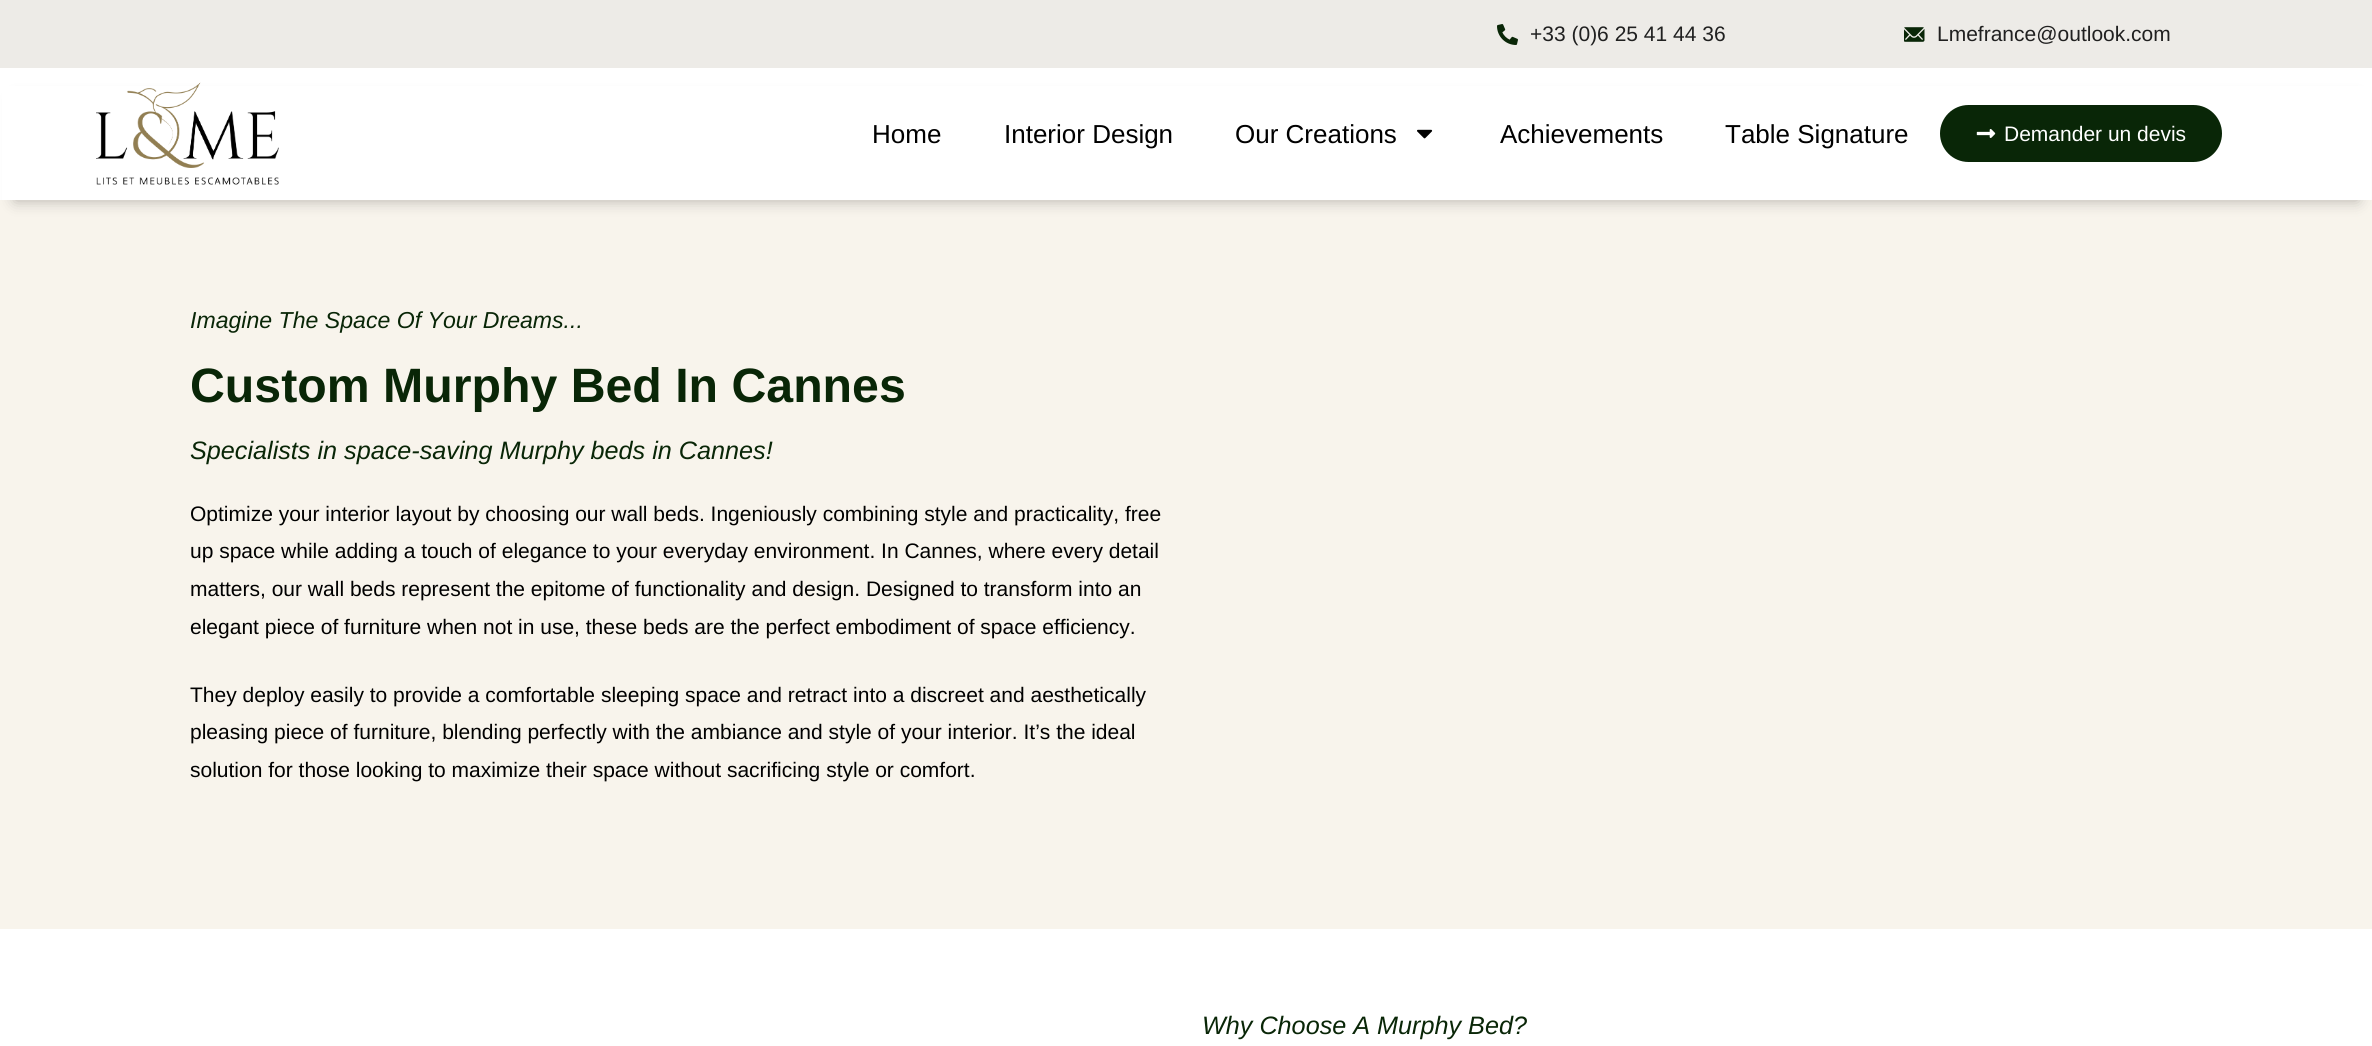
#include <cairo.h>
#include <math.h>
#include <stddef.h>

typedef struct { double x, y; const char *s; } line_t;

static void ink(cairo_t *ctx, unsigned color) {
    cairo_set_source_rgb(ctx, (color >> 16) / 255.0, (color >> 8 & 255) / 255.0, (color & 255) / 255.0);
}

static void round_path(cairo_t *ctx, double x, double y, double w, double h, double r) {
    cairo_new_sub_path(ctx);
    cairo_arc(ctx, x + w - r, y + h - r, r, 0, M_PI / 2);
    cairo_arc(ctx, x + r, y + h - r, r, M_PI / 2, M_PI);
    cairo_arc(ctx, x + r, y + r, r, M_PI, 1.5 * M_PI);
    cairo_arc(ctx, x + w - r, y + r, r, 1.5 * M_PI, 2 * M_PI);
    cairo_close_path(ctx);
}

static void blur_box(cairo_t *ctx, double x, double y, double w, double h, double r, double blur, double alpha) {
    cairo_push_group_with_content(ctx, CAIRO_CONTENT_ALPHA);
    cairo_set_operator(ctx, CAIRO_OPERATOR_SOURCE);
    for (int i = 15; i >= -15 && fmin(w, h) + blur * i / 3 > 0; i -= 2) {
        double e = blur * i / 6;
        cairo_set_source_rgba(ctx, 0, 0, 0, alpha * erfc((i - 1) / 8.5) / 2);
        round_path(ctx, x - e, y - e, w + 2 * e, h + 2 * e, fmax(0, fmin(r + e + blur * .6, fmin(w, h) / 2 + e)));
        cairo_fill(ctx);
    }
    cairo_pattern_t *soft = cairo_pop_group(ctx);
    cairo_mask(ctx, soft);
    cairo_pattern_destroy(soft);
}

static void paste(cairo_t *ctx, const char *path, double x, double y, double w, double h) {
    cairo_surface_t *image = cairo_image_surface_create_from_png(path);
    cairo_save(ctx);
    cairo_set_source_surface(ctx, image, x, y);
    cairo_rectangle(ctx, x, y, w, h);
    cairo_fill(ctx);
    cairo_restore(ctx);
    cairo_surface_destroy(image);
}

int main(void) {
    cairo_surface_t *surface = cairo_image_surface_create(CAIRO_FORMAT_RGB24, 2372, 1046);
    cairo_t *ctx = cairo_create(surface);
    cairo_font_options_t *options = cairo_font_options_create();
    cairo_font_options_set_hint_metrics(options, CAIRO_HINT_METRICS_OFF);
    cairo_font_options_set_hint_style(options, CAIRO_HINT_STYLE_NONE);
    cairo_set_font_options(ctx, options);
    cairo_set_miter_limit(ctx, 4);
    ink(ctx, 0xFFFFFF);
    cairo_paint(ctx);
    ink(ctx, 0xEDEBE7);
    cairo_rectangle(ctx, 0, 0, 2372, 68);
    cairo_fill(ctx);
    paste(ctx, "media/1.png", 1497, 24, 21, 21);
    cairo_select_font_face(ctx, "Liberation Sans", CAIRO_FONT_SLANT_NORMAL, CAIRO_FONT_WEIGHT_NORMAL);
    cairo_set_font_size(ctx, 21);
    ink(ctx, 0x202020);
    cairo_move_to(ctx, 1530, 41);
    cairo_show_text(ctx, "+33 (0)6 25 41 44 36");
    paste(ctx, "media/2.png", 1904, 27, 21, 15);
    cairo_move_to(ctx, 1937, 41);
    cairo_show_text(ctx, "Lmefrance@outlook.com");
    ink(ctx, 0xF8F4EC);
    cairo_rectangle(ctx, 0, 200, 2372, 729);
    cairo_fill(ctx);
    ink(ctx, 0x000000);
    blur_box(ctx, 15, 99, 2343, 102, 0, 7.5, 0.26);
    ink(ctx, 0xFFFFFF);
    cairo_rectangle(ctx, 2, 86, 2369, 114);
    cairo_fill(ctx);
    paste(ctx, "media/3.png", 96, 82, 183, 103);
    cairo_set_font_size(ctx, 26);
    ink(ctx, 0x000000);
    {
        static const line_t items[] = {
            {872, 143, "Home"},
            {1004, 143, "Interior Design"},
            {1235, 143, "Our Creations"},
        };
        for (size_t i = 0; i < sizeof items / sizeof *items; i++) {
            cairo_move_to(ctx, items[i].x, items[i].y);
            cairo_show_text(ctx, items[i].s);
        }
    }
    paste(ctx, "media/4.png", 1417, 129, 16, 10);
    cairo_move_to(ctx, 1500, 143);
    cairo_show_text(ctx, "Achievements");
    cairo_move_to(ctx, 1725, 143);
    cairo_show_text(ctx, "Table Signature");
    ink(ctx, 0x092607);
    round_path(ctx, 1940, 105, 282, 57, 28.5);
    cairo_fill(ctx);
    paste(ctx, "media/5.png", 1976, 129, 20, 9);
    cairo_set_font_size(ctx, 21);
    ink(ctx, 0xFFFFFF);
    cairo_move_to(ctx, 2004, 141);
    cairo_show_text(ctx, "Demander un devis");
    cairo_select_font_face(ctx, "Liberation Sans", CAIRO_FONT_SLANT_ITALIC, CAIRO_FONT_WEIGHT_NORMAL);
    cairo_set_font_size(ctx, 23.1);
    ink(ctx, 0x092607);
    cairo_move_to(ctx, 190, 328);
    cairo_show_text(ctx, "Imagine The Space Of Your Dreams...");
    cairo_select_font_face(ctx, "Liberation Sans", CAIRO_FONT_SLANT_NORMAL, CAIRO_FONT_WEIGHT_BOLD);
    cairo_set_font_size(ctx, 48.25);
    cairo_move_to(ctx, 190, 402);
    cairo_show_text(ctx, "Custom Murphy Bed In Cannes");
    cairo_select_font_face(ctx, "Liberation Sans", CAIRO_FONT_SLANT_ITALIC, CAIRO_FONT_WEIGHT_NORMAL);
    cairo_set_font_size(ctx, 25.2);
    cairo_move_to(ctx, 190, 459);
    cairo_show_text(ctx, "Specialists in space-saving Murphy beds in Cannes!");
    cairo_select_font_face(ctx, "Liberation Sans", CAIRO_FONT_SLANT_NORMAL, CAIRO_FONT_WEIGHT_NORMAL);
    cairo_set_font_size(ctx, 21);
    ink(ctx, 0x000000);
    {
        static const line_t items[] = {
            {190, 521, "Optimize your interior layout by choosing our wall beds. Ingeniously combining style and practicality, free"},
            {190, 558, "up space while adding a touch of elegance to your everyday environment. In Cannes, where every detail"},
            {190, 596, "matters, our wall beds represent the epitome of functionality and design. Designed to transform into an"},
            {190, 634, "elegant piece of furniture when not in use, these beds are the perfect embodiment of space efficiency."},
            {190, 702, "They deploy easily to provide a comfortable sleeping space and retract into a discreet and aesthetically"},
            {190, 739, "pleasing piece of furniture, blending perfectly with the ambiance and style of your interior. It’s the ideal"},
            {190, 777, "solution for those looking to maximize their space without sacrificing style or comfort."},
        };
        for (size_t i = 0; i < sizeof items / sizeof *items; i++) {
            cairo_move_to(ctx, items[i].x, items[i].y);
            cairo_show_text(ctx, items[i].s);
        }
    }
    cairo_select_font_face(ctx, "Liberation Sans", CAIRO_FONT_SLANT_ITALIC, CAIRO_FONT_WEIGHT_NORMAL);
    cairo_set_font_size(ctx, 25.2);
    ink(ctx, 0x092607);
    cairo_move_to(ctx, 1202, 1034);
    cairo_show_text(ctx, "Why Choose A Murphy Bed?");
    cairo_surface_write_to_png(surface, "image.png");
    cairo_font_options_destroy(options);
    cairo_destroy(ctx);
    cairo_surface_destroy(surface);
    return 0;
}
